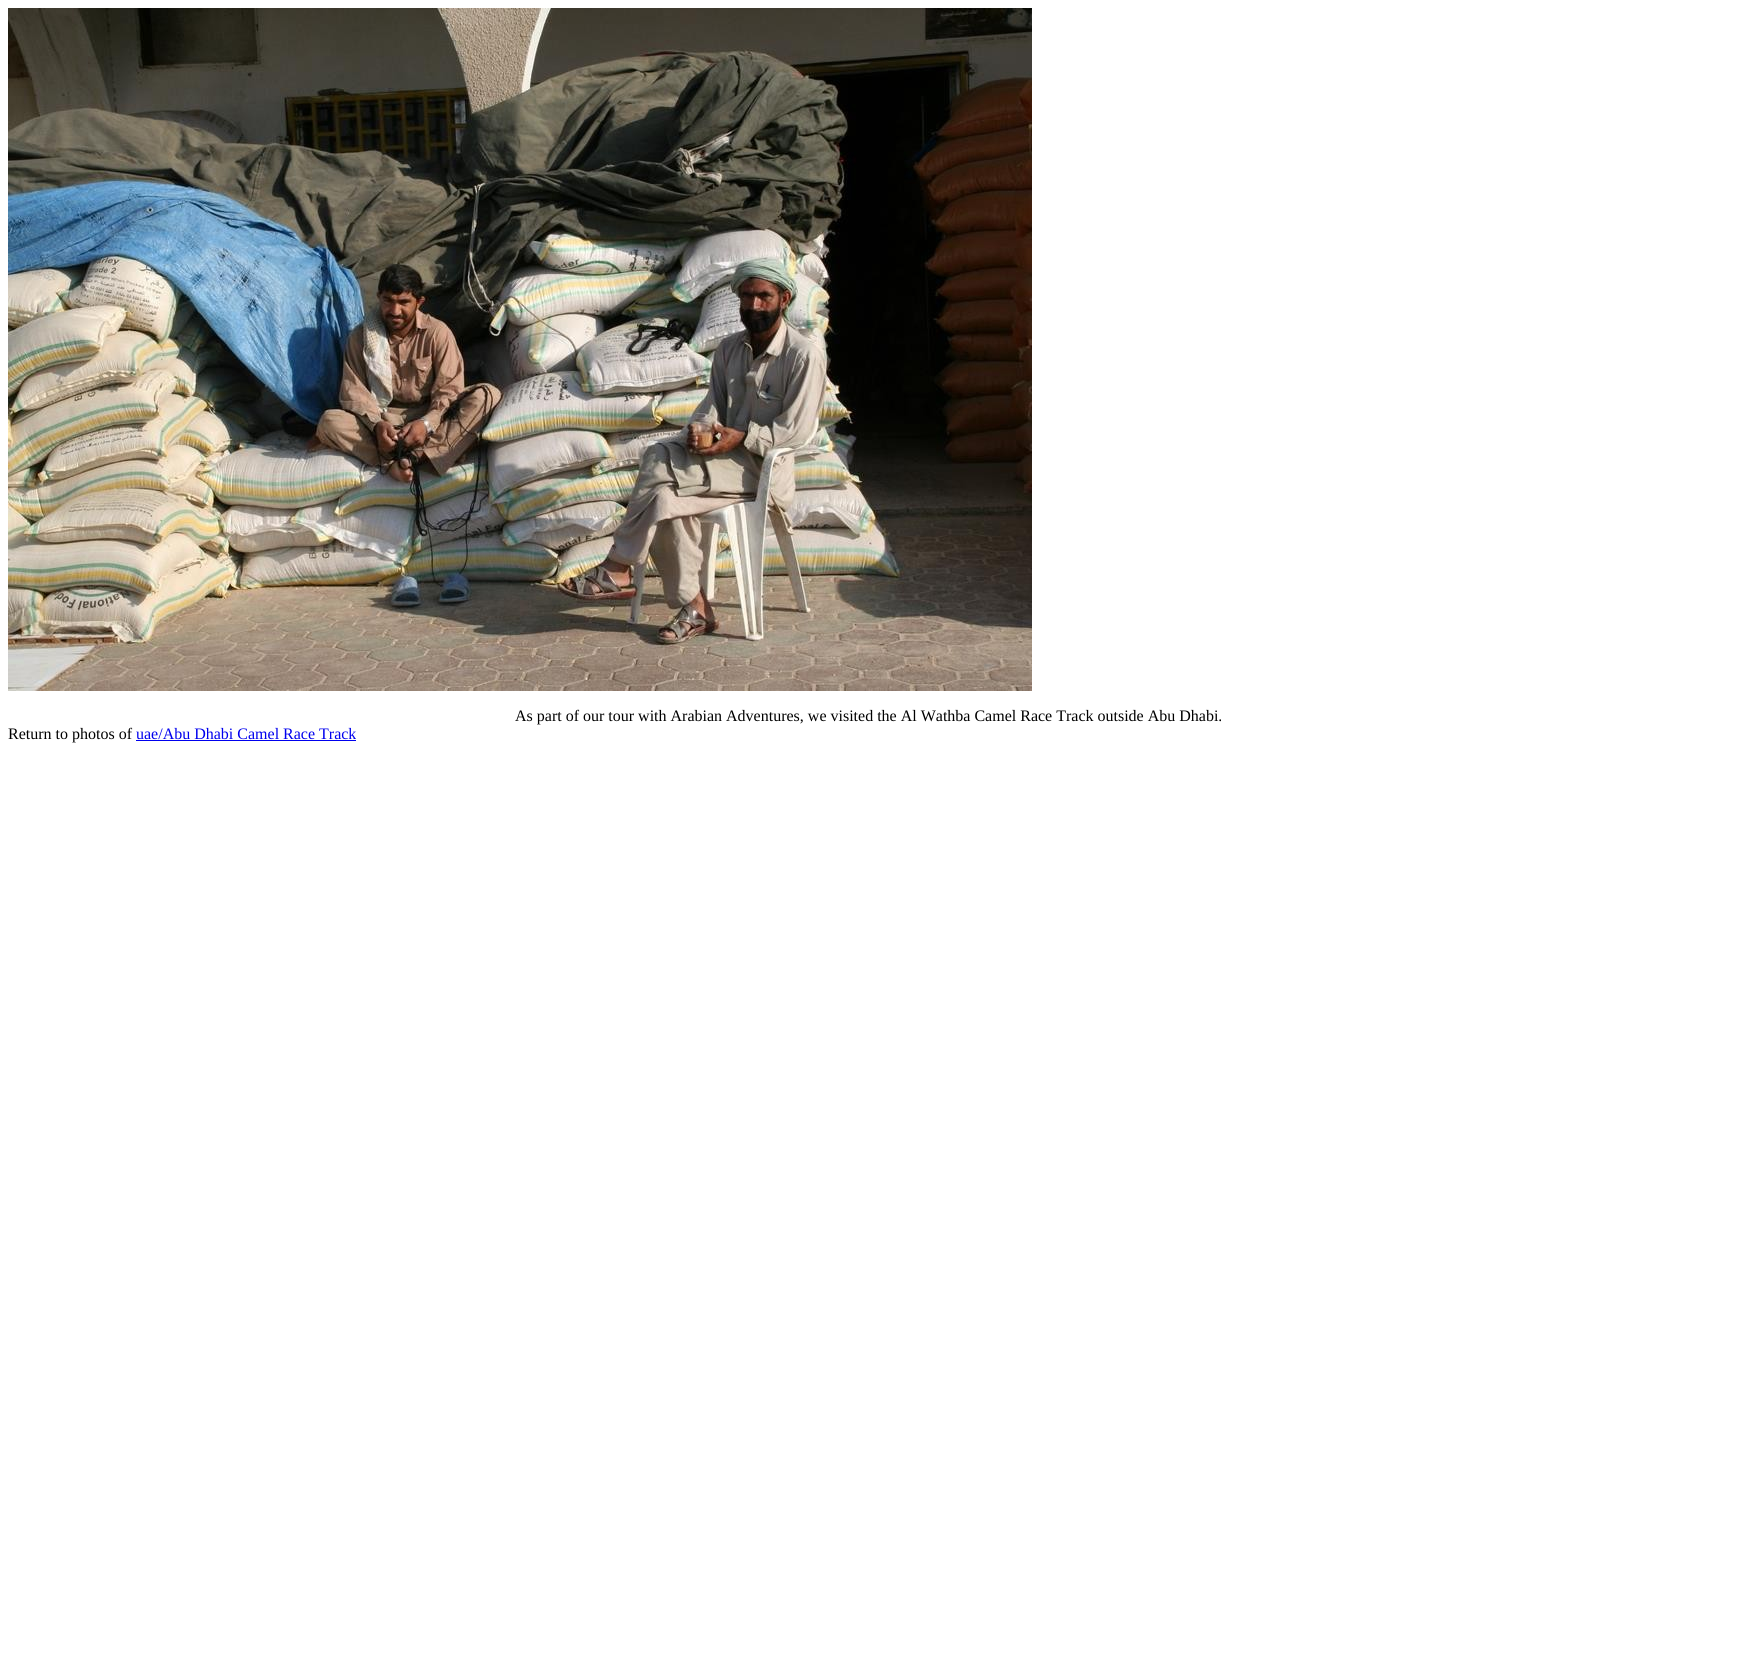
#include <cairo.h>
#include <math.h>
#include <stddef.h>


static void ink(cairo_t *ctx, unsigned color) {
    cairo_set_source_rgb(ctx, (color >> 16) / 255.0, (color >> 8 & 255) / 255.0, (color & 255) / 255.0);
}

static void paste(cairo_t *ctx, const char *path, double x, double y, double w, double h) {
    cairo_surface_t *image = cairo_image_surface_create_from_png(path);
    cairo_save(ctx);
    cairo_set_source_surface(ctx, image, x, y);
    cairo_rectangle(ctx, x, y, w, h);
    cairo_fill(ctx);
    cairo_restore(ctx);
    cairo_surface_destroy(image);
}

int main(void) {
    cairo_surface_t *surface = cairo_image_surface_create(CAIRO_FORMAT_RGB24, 1738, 1675);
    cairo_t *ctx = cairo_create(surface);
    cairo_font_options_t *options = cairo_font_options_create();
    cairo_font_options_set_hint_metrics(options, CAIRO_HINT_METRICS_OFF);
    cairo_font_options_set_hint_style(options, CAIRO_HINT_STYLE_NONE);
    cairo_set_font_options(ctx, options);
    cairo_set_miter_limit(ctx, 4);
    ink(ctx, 0xFFFFFF);
    cairo_paint(ctx);
    paste(ctx, "media/1.png", 8, 8, 1024, 683);
    cairo_select_font_face(ctx, "Liberation Serif", CAIRO_FONT_SLANT_NORMAL, CAIRO_FONT_WEIGHT_NORMAL);
    cairo_set_font_size(ctx, 16);
    ink(ctx, 0x000000);
    cairo_move_to(ctx, 515, 721);
    cairo_show_text(ctx, "As part of our tour with Arabian Adventures, we visited the Al Wathba Camel Race Track outside Abu Dhabi.");
    cairo_move_to(ctx, 8, 739);
    cairo_show_text(ctx, "Return to photos of");
    ink(ctx, 0x0000EE);
    cairo_move_to(ctx, 136, 739);
    cairo_show_text(ctx, "uae/Abu Dhabi Camel Race Track");
    cairo_rectangle(ctx, 136, 740, 220, 1);
    cairo_fill(ctx);
    cairo_surface_write_to_png(surface, "image.png");
    cairo_font_options_destroy(options);
    cairo_destroy(ctx);
    cairo_surface_destroy(surface);
    return 0;
}
